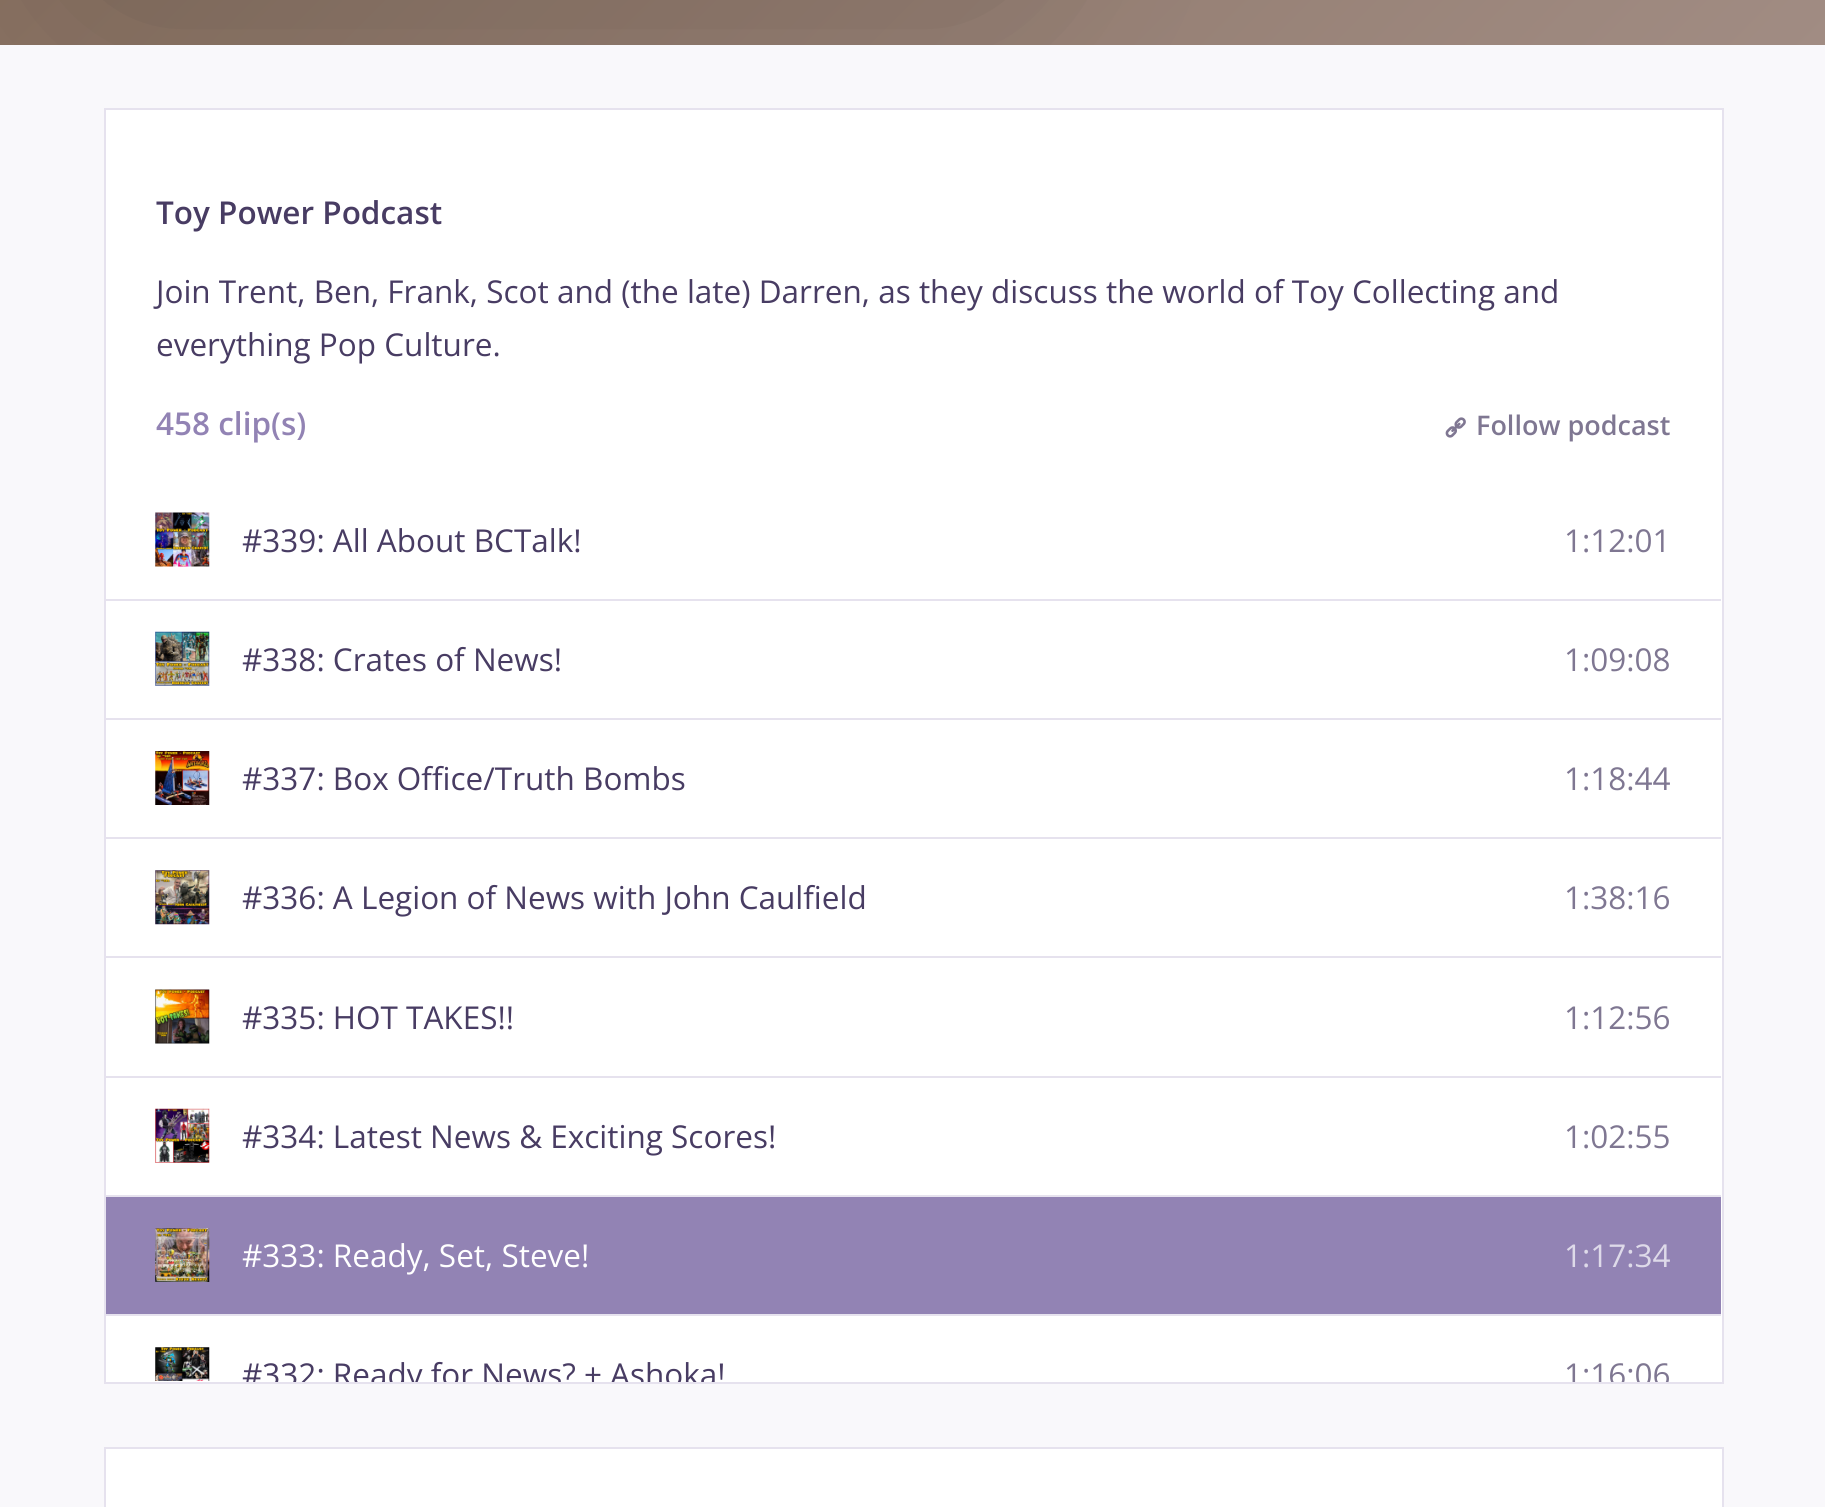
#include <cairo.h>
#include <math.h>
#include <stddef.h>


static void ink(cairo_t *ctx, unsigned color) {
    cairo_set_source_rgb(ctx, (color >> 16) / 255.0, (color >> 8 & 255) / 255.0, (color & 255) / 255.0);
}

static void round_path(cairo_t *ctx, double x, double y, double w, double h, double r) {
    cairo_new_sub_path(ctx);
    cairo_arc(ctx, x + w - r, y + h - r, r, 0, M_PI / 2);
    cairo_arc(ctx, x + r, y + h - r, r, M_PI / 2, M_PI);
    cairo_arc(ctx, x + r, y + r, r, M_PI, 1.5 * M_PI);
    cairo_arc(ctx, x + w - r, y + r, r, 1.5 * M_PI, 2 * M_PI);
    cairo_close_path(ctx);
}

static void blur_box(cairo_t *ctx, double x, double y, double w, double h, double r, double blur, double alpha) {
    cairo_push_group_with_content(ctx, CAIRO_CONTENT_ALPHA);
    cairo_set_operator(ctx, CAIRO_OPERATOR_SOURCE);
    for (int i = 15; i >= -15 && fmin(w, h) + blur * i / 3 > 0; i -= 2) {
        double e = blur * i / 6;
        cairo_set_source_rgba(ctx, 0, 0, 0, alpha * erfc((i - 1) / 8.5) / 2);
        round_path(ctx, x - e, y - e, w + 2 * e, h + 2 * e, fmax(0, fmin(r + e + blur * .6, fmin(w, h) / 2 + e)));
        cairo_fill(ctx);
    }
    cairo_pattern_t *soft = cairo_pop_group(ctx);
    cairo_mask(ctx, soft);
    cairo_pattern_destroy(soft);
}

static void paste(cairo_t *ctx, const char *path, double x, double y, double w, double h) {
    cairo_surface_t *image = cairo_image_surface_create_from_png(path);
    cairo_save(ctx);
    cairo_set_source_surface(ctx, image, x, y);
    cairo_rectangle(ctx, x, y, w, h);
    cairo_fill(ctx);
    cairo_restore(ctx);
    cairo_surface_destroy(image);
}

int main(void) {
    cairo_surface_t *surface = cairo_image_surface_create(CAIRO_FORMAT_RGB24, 1825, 1507);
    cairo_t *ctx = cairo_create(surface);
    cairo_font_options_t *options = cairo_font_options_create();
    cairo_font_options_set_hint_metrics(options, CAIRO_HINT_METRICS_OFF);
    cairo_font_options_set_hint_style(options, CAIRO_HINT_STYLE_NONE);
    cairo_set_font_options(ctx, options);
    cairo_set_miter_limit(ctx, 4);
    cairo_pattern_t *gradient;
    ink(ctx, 0xF9F8FB);
    cairo_paint(ctx);
    gradient = cairo_pattern_create_linear(184, -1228, 1643, 230);
    cairo_pattern_add_color_stop_rgba(gradient, 0, 0.471, 0.376, 0.302, 1);
    cairo_pattern_add_color_stop_rgba(gradient, 1, 0.631, 0.549, 0.514, 1);
    cairo_set_source(ctx, gradient);
    cairo_pattern_destroy(gradient);
    cairo_rectangle(ctx, 0, 0, 1825, 45);
    cairo_fill(ctx);
    ink(ctx, 0xFFFFFF);
    cairo_rectangle(ctx, 105, 109, 1618, 1274);
    cairo_fill_preserve(ctx);
    ink(ctx, 0xE6E2EE);
    cairo_stroke(ctx);
    cairo_save(ctx);
    cairo_rectangle(ctx, 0, 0, 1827, 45);
    cairo_clip(ctx);
    ink(ctx, 0x000000);
    blur_box(ctx, 104, -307, 900, 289, 23, 94.5, 0.2);
    cairo_restore(ctx);
    cairo_select_font_face(ctx, "Open Sans SemiBold", CAIRO_FONT_SLANT_NORMAL, CAIRO_FONT_WEIGHT_NORMAL);
    cairo_set_font_size(ctx, 31.5);
    ink(ctx, 0x483C63);
    cairo_move_to(ctx, 156, 224);
    cairo_show_text(ctx, "Toy Power Podcast");
    cairo_select_font_face(ctx, "Open Sans", CAIRO_FONT_SLANT_NORMAL, CAIRO_FONT_WEIGHT_NORMAL);
    cairo_move_to(ctx, 156, 303);
    cairo_show_text(ctx, "Join Trent, Ben, Frank, Scot and (the late) Darren, as they discuss the world of Toy Collecting and");
    cairo_move_to(ctx, 156, 356);
    cairo_show_text(ctx, "everything Pop Culture.");
    cairo_select_font_face(ctx, "Open Sans SemiBold", CAIRO_FONT_SLANT_NORMAL, CAIRO_FONT_WEIGHT_NORMAL);
    ink(ctx, 0x9283B4);
    cairo_move_to(ctx, 156, 435);
    cairo_show_text(ctx, "458 clip(s)");
    paste(ctx, "media/1.png", 1445, 417, 21, 21);
    cairo_set_font_size(ctx, 27);
    ink(ctx, 0x7F7792);
    cairo_move_to(ctx, 1476, 435);
    cairo_show_text(ctx, "Follow podcast");
    paste(ctx, "media/2.png", 155, 512, 55, 55);
    cairo_select_font_face(ctx, "Open Sans", CAIRO_FONT_SLANT_NORMAL, CAIRO_FONT_WEIGHT_NORMAL);
    cairo_set_font_size(ctx, 31.5);
    ink(ctx, 0x483C63);
    cairo_move_to(ctx, 242, 552);
    cairo_show_text(ctx, "#339: All About BCTalk!");
    ink(ctx, 0x7F7792);
    cairo_move_to(ctx, 1564, 552);
    cairo_show_text(ctx, "1:12:01");
    ink(ctx, 0xE6E2EE);
    cairo_rectangle(ctx, 106, 599, 1615, 2);
    cairo_fill(ctx);
    paste(ctx, "media/3.png", 155, 631, 55, 55);
    ink(ctx, 0x483C63);
    cairo_move_to(ctx, 242, 671);
    cairo_show_text(ctx, "#338: Crates of News!");
    ink(ctx, 0x7F7792);
    cairo_move_to(ctx, 1564, 671);
    cairo_show_text(ctx, "1:09:08");
    ink(ctx, 0xE6E2EE);
    cairo_rectangle(ctx, 106, 718, 1615, 2);
    cairo_fill(ctx);
    paste(ctx, "media/4.png", 155, 751, 55, 54);
    ink(ctx, 0x483C63);
    cairo_move_to(ctx, 242, 790);
    cairo_show_text(ctx, "#337: Box Office/Truth Bombs");
    ink(ctx, 0x7F7792);
    cairo_move_to(ctx, 1564, 790);
    cairo_show_text(ctx, "1:18:44");
    ink(ctx, 0xE6E2EE);
    cairo_rectangle(ctx, 106, 837, 1615, 2);
    cairo_fill(ctx);
    paste(ctx, "media/5.png", 155, 870, 55, 55);
    ink(ctx, 0x483C63);
    cairo_move_to(ctx, 242, 909);
    cairo_show_text(ctx, "#336: A Legion of News with John Caulfield");
    ink(ctx, 0x7F7792);
    cairo_move_to(ctx, 1564, 909);
    cairo_show_text(ctx, "1:38:16");
    ink(ctx, 0xE6E2EE);
    cairo_rectangle(ctx, 106, 956, 1615, 2);
    cairo_fill(ctx);
    paste(ctx, "media/6.png", 155, 989, 55, 55);
    ink(ctx, 0x483C63);
    cairo_move_to(ctx, 242, 1029);
    cairo_show_text(ctx, "#335: HOT TAKES!!");
    ink(ctx, 0x7F7792);
    cairo_move_to(ctx, 1564, 1029);
    cairo_show_text(ctx, "1:12:56");
    ink(ctx, 0xE6E2EE);
    cairo_rectangle(ctx, 106, 1076, 1615, 2);
    cairo_fill(ctx);
    paste(ctx, "media/7.png", 155, 1108, 55, 55);
    ink(ctx, 0x483C63);
    cairo_move_to(ctx, 242, 1148);
    cairo_show_text(ctx, "#334: Latest News & Exciting Scores!");
    ink(ctx, 0x7F7792);
    cairo_move_to(ctx, 1564, 1148);
    cairo_show_text(ctx, "1:02:55");
    ink(ctx, 0xE6E2EE);
    cairo_rectangle(ctx, 106, 1195, 1615, 2);
    cairo_fill(ctx);
    ink(ctx, 0x9283B4);
    cairo_rectangle(ctx, 106, 1197, 1615, 117);
    cairo_fill(ctx);
    paste(ctx, "media/8.png", 155, 1228, 55, 54);
    ink(ctx, 0xFFFFFF);
    cairo_move_to(ctx, 242, 1267);
    cairo_show_text(ctx, "#333: Ready, Set, Steve!");
    ink(ctx, 0xDEDAE9);
    cairo_move_to(ctx, 1564, 1267);
    cairo_show_text(ctx, "1:17:34");
    ink(ctx, 0xE6E2EE);
    cairo_rectangle(ctx, 106, 1314, 1615, 2);
    cairo_fill(ctx);
    paste(ctx, "media/9.png", 155, 1347, 55, 34);
    cairo_save(ctx);
    cairo_rectangle(ctx, 241, 1348, 1291, 34);
    cairo_clip(ctx);
    ink(ctx, 0x483C63);
    cairo_move_to(ctx, 242, 1386);
    cairo_show_text(ctx, "#332: Ready for News? + Ashoka!");
    cairo_restore(ctx);
    cairo_save(ctx);
    cairo_rectangle(ctx, 106, 482, 1615, 900);
    cairo_clip(ctx);
    ink(ctx, 0x7F7792);
    cairo_move_to(ctx, 1564, 1386);
    cairo_show_text(ctx, "1:16:06");
    cairo_restore(ctx);
    ink(ctx, 0xFFFFFF);
    cairo_rectangle(ctx, 105, 1448, 1618, 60);
    cairo_fill_preserve(ctx);
    ink(ctx, 0xE6E2EE);
    cairo_stroke(ctx);
    cairo_surface_write_to_png(surface, "image.png");
    cairo_font_options_destroy(options);
    cairo_destroy(ctx);
    cairo_surface_destroy(surface);
    return 0;
}
